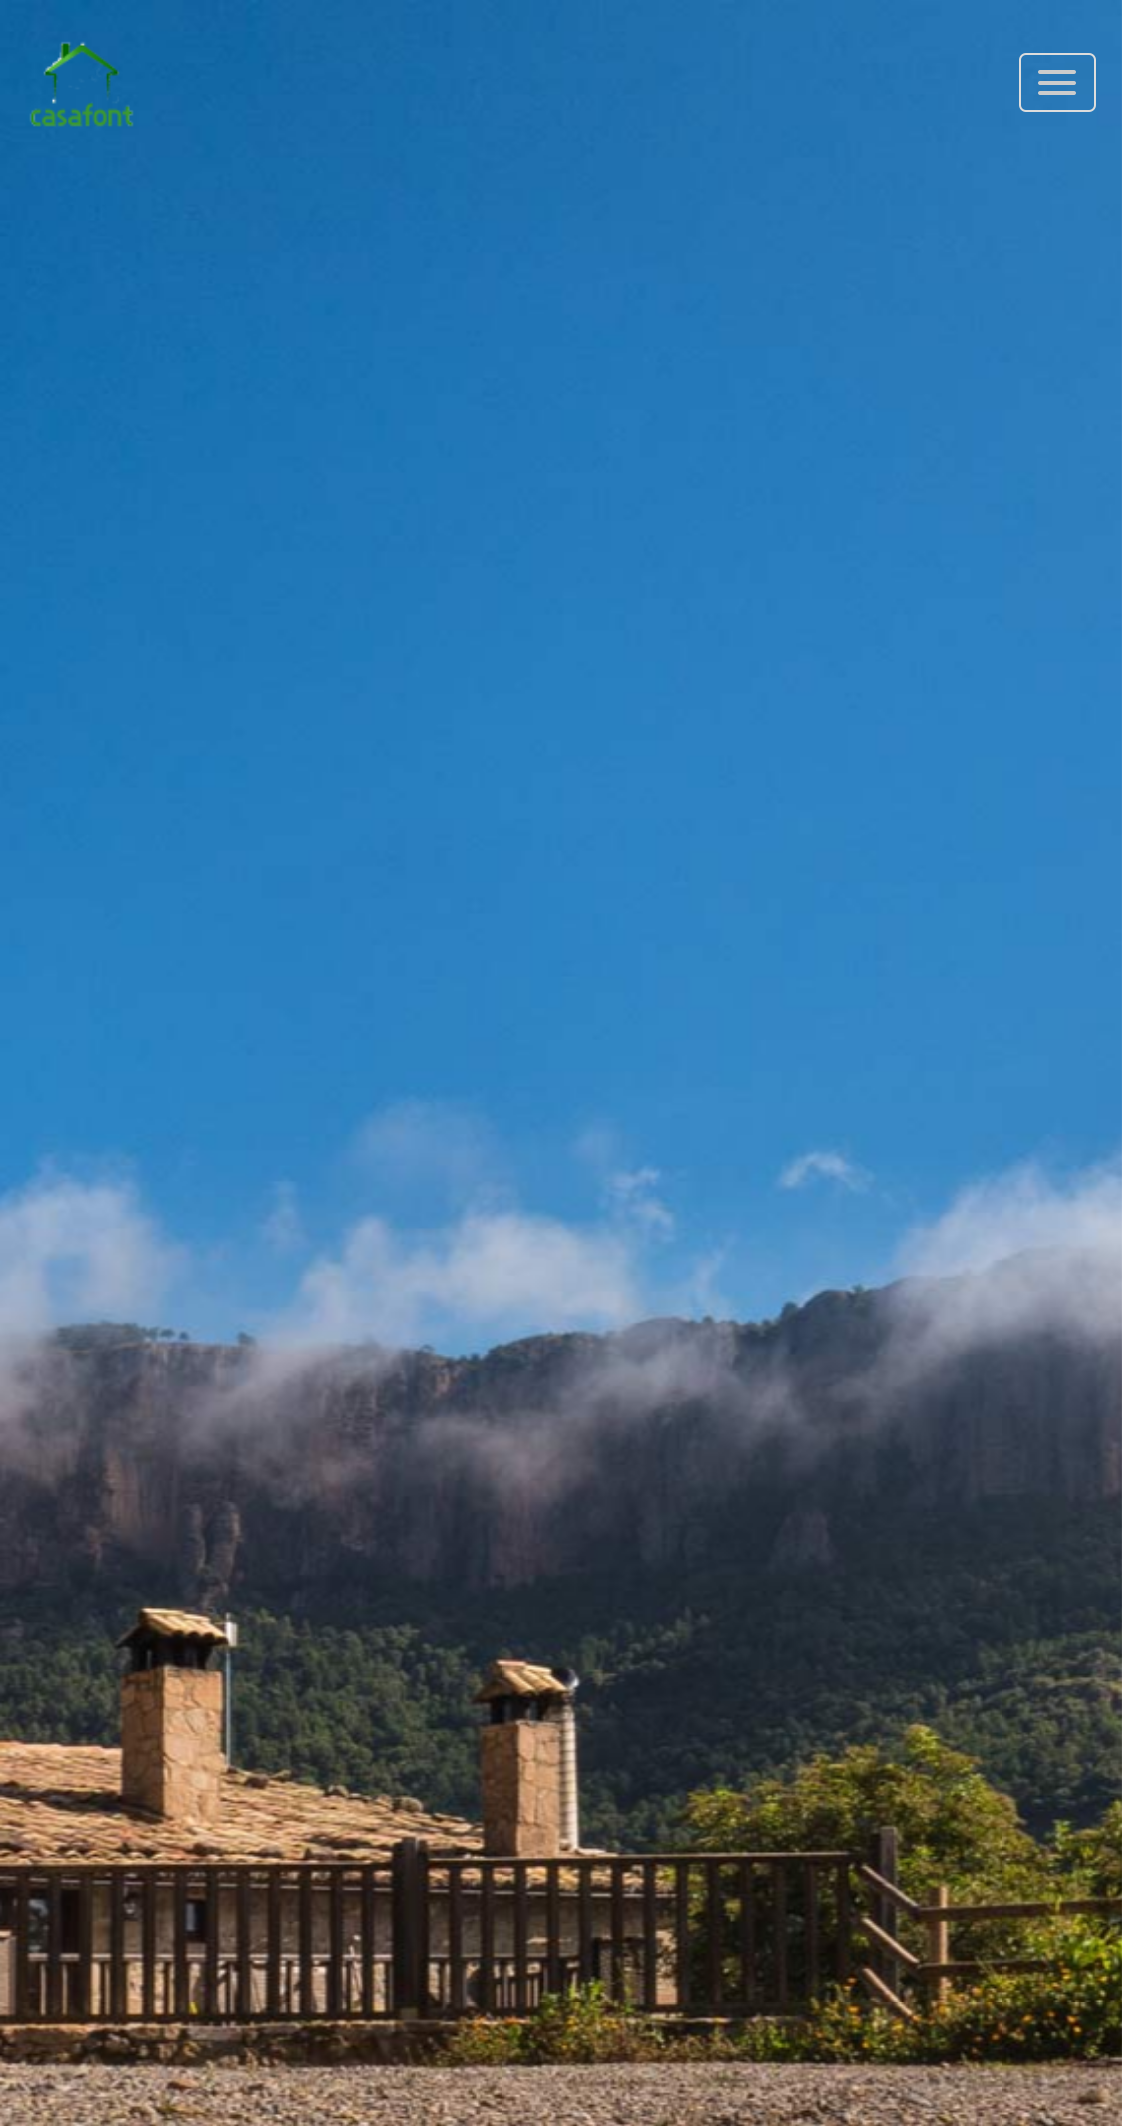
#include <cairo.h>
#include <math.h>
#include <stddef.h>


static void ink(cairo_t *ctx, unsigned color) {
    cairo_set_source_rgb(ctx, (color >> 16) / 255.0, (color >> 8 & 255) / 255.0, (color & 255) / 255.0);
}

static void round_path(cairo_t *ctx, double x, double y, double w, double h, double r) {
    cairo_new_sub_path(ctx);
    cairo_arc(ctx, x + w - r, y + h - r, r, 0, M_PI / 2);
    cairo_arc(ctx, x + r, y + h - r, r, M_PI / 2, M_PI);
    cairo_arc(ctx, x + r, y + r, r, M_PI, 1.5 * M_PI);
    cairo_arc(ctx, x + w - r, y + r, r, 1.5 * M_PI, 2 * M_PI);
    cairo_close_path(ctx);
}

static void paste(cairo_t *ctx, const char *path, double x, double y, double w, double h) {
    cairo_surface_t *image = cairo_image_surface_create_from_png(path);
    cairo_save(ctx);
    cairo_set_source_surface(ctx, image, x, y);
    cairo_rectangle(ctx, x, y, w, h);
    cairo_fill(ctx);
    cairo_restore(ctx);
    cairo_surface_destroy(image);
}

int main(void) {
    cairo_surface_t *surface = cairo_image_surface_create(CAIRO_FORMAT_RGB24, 1122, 2126);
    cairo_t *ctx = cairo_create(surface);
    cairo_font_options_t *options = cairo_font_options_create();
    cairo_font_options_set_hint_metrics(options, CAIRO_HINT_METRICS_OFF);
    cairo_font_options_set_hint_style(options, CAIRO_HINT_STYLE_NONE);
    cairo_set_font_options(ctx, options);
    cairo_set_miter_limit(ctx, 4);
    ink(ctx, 0xFFFFFF);
    cairo_paint(ctx);
    paste(ctx, "media/1.png", 0, 0, 1122, 2126);
    paste(ctx, "media/2.png", 29, 41, 105, 86);
    round_path(ctx, 1020, 54, 75, 57, 6);
    ink(ctx, 0xDDDDDD);
    cairo_stroke(ctx);
    ink(ctx, 0xCCCCCC);
    round_path(ctx, 1038, 70, 38, 4, 2);
    cairo_fill(ctx);
    round_path(ctx, 1038, 81, 38, 4, 2);
    cairo_fill(ctx);
    round_path(ctx, 1038, 91, 38, 4, 2);
    cairo_fill(ctx);
    cairo_surface_write_to_png(surface, "image.png");
    cairo_font_options_destroy(options);
    cairo_destroy(ctx);
    cairo_surface_destroy(surface);
    return 0;
}
